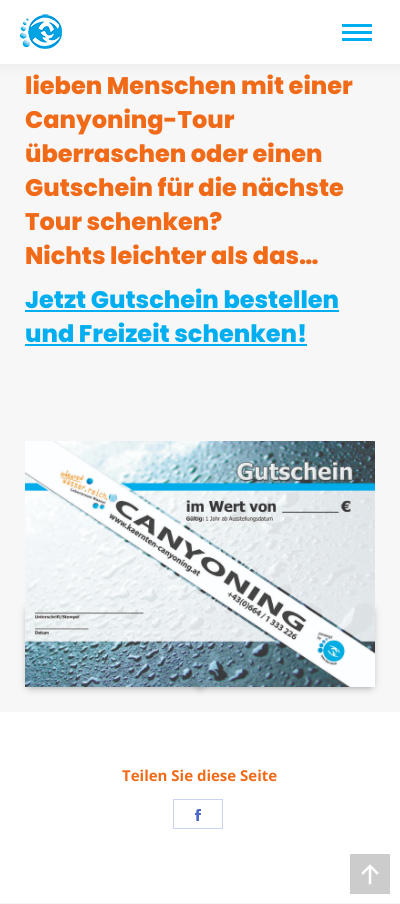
#include <cairo.h>
#include <math.h>
#include <stddef.h>

typedef struct { double x, y; const char *s; } line_t;
typedef struct { double x, y, w, h; unsigned color; } box_t;

static void ink(cairo_t *ctx, unsigned color) {
    cairo_set_source_rgb(ctx, (color >> 16) / 255.0, (color >> 8 & 255) / 255.0, (color & 255) / 255.0);
}

static void round_path(cairo_t *ctx, double x, double y, double w, double h, double r) {
    cairo_new_sub_path(ctx);
    cairo_arc(ctx, x + w - r, y + h - r, r, 0, M_PI / 2);
    cairo_arc(ctx, x + r, y + h - r, r, M_PI / 2, M_PI);
    cairo_arc(ctx, x + r, y + r, r, M_PI, 1.5 * M_PI);
    cairo_arc(ctx, x + w - r, y + r, r, 1.5 * M_PI, 2 * M_PI);
    cairo_close_path(ctx);
}

static void blur_box(cairo_t *ctx, double x, double y, double w, double h, double r, double blur, double alpha) {
    cairo_push_group_with_content(ctx, CAIRO_CONTENT_ALPHA);
    cairo_set_operator(ctx, CAIRO_OPERATOR_SOURCE);
    for (int i = 15; i >= -15 && fmin(w, h) + blur * i / 3 > 0; i -= 2) {
        double e = blur * i / 6;
        cairo_set_source_rgba(ctx, 0, 0, 0, alpha * erfc((i - 1) / 8.5) / 2);
        round_path(ctx, x - e, y - e, w + 2 * e, h + 2 * e, fmax(0, fmin(r + e + blur * .6, fmin(w, h) / 2 + e)));
        cairo_fill(ctx);
    }
    cairo_pattern_t *soft = cairo_pop_group(ctx);
    cairo_mask(ctx, soft);
    cairo_pattern_destroy(soft);
}

static void paste(cairo_t *ctx, const char *path, double x, double y, double w, double h) {
    cairo_surface_t *image = cairo_image_surface_create_from_png(path);
    cairo_save(ctx);
    cairo_set_source_surface(ctx, image, x, y);
    cairo_rectangle(ctx, x, y, w, h);
    cairo_fill(ctx);
    cairo_restore(ctx);
    cairo_surface_destroy(image);
}

int main(void) {
    cairo_surface_t *surface = cairo_image_surface_create(CAIRO_FORMAT_RGB24, 400, 904);
    cairo_t *ctx = cairo_create(surface);
    cairo_font_options_t *options = cairo_font_options_create();
    cairo_font_options_set_hint_metrics(options, CAIRO_HINT_METRICS_OFF);
    cairo_font_options_set_hint_style(options, CAIRO_HINT_STYLE_NONE);
    cairo_set_font_options(ctx, options);
    cairo_set_miter_limit(ctx, 4);
    ink(ctx, 0xFFFFFF);
    cairo_paint(ctx);
    ink(ctx, 0xF7F7F7);
    cairo_rectangle(ctx, 0, 64, 400, 648);
    cairo_fill(ctx);
    ink(ctx, 0x000000);
    blur_box(ctx, -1, -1, 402, 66, 0, 7.5, 0.07);
    ink(ctx, 0xFFFFFF);
    cairo_rectangle(ctx, 0, 0, 400, 64);
    cairo_fill(ctx);
    paste(ctx, "media/1.png", 20, 14, 42, 35);
    {
        static const box_t items[] = {
            {342, 24, 30, 3, 0x01AEF0},
            {342, 31, 30, 3, 0x01AEF0},
            {342, 38, 30, 3, 0x01AEF0},
        };
        for (size_t i = 0; i < sizeof items / sizeof *items; i++) {
            ink(ctx, items[i].color);
            cairo_rectangle(ctx, items[i].x, items[i].y, items[i].w, items[i].h);
            cairo_fill(ctx);
        }
    }
    cairo_select_font_face(ctx, "Poppins ExtraBold", CAIRO_FONT_SLANT_NORMAL, CAIRO_FONT_WEIGHT_NORMAL);
    cairo_set_font_size(ctx, 24);
    ink(ctx, 0xF16A18);
    {
        static const line_t items[] = {
            {25, 94, "lieben Menschen mit einer"},
            {25, 128, "Canyoning-Tour"},
            {25, 162, "überraschen oder einen"},
            {25, 196, "Gutschein für die nächste"},
            {25, 230, "Tour schenken?"},
            {25, 264, "Nichts leichter als das…"},
        };
        for (size_t i = 0; i < sizeof items / sizeof *items; i++) {
            cairo_move_to(ctx, items[i].x, items[i].y);
            cairo_show_text(ctx, items[i].s);
        }
    }
    ink(ctx, 0x01AEF0);
    cairo_move_to(ctx, 25, 308);
    cairo_show_text(ctx, "Jetzt Gutschein bestellen");
    cairo_rectangle(ctx, 25, 310, 314, 2);
    cairo_fill(ctx);
    cairo_move_to(ctx, 25, 342);
    cairo_show_text(ctx, "und Freizeit schenken!");
    cairo_rectangle(ctx, 25, 344, 282, 2);
    cairo_fill(ctx);
    ink(ctx, 0x000000);
    blur_box(ctx, 30, 611, 170, 74, 0, 5, 0.6);
    blur_box(ctx, 200, 611, 170, 74, 0, 5, 0.6);
    paste(ctx, "media/2.png", 25, 441, 350, 246);
    cairo_select_font_face(ctx, "Open Sans", CAIRO_FONT_SLANT_NORMAL, CAIRO_FONT_WEIGHT_BOLD);
    cairo_set_font_size(ctx, 15);
    ink(ctx, 0xF16A18);
    cairo_move_to(ctx, 122, 781);
    cairo_show_text(ctx, "Teilen Sie diese Seite");
    cairo_rectangle(ctx, 173.5, 799.5, 49, 29);
    ink(ctx, 0xC9D2EE);
    cairo_set_line_width(ctx, 1);
    cairo_stroke(ctx);
    paste(ctx, "media/3.png", 195, 809, 6, 12);
    ink(ctx, 0xCCCCCC);
    cairo_rectangle(ctx, 350, 854, 40, 40);
    cairo_fill(ctx);
    paste(ctx, "media/4.png", 361, 864, 18, 21);
    ink(ctx, 0xF7F7F7);
    cairo_rectangle(ctx, 0, 903, 400, 1);
    cairo_fill(ctx);
    cairo_surface_write_to_png(surface, "image.png");
    cairo_font_options_destroy(options);
    cairo_destroy(ctx);
    cairo_surface_destroy(surface);
    return 0;
}
